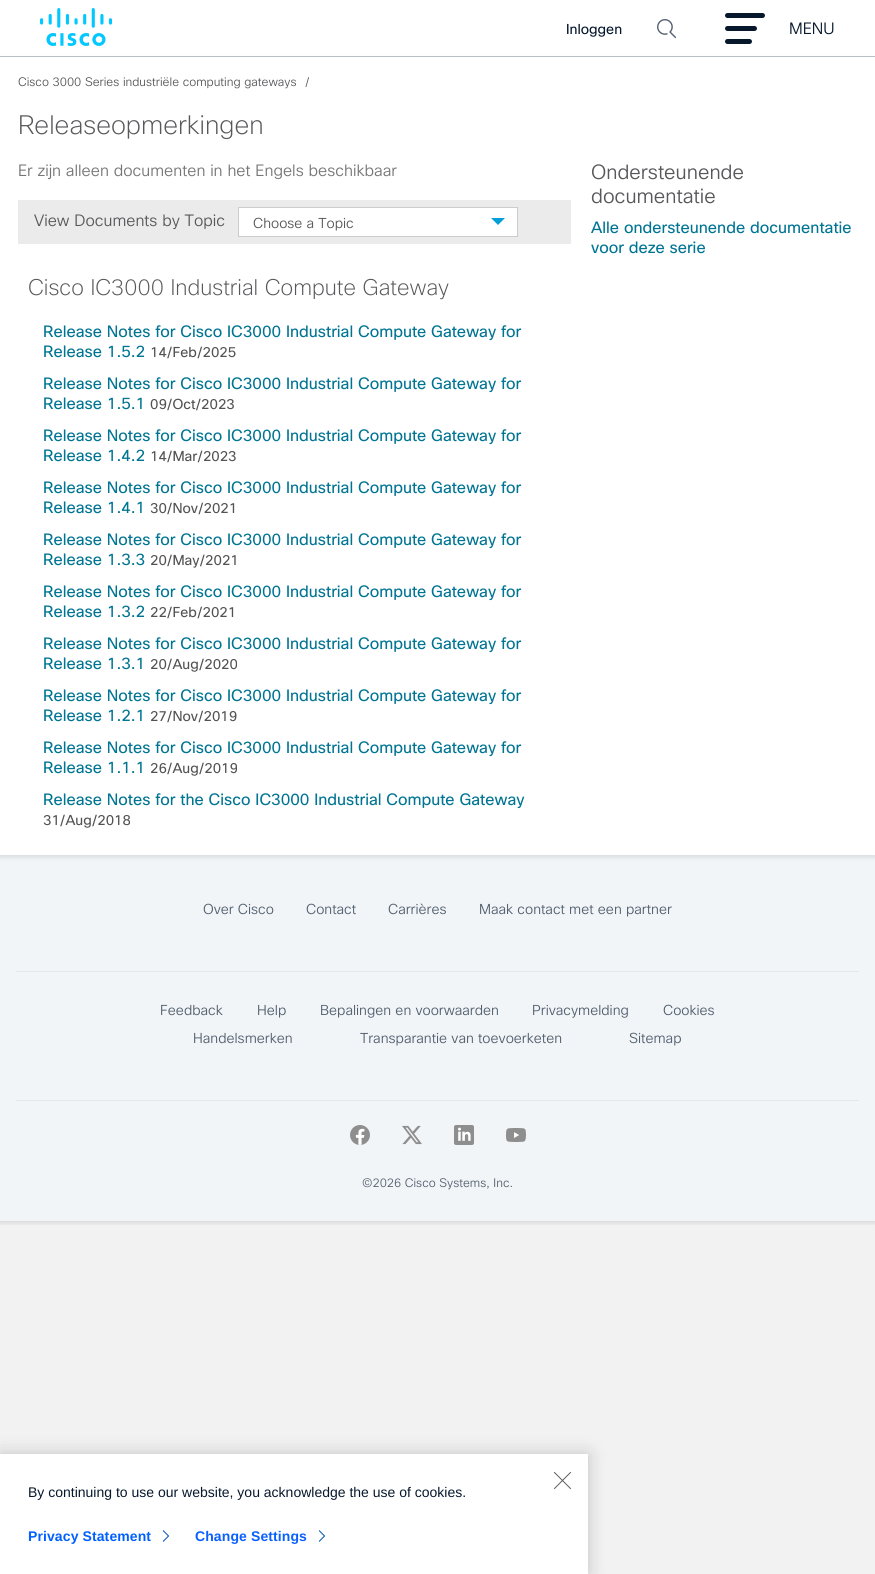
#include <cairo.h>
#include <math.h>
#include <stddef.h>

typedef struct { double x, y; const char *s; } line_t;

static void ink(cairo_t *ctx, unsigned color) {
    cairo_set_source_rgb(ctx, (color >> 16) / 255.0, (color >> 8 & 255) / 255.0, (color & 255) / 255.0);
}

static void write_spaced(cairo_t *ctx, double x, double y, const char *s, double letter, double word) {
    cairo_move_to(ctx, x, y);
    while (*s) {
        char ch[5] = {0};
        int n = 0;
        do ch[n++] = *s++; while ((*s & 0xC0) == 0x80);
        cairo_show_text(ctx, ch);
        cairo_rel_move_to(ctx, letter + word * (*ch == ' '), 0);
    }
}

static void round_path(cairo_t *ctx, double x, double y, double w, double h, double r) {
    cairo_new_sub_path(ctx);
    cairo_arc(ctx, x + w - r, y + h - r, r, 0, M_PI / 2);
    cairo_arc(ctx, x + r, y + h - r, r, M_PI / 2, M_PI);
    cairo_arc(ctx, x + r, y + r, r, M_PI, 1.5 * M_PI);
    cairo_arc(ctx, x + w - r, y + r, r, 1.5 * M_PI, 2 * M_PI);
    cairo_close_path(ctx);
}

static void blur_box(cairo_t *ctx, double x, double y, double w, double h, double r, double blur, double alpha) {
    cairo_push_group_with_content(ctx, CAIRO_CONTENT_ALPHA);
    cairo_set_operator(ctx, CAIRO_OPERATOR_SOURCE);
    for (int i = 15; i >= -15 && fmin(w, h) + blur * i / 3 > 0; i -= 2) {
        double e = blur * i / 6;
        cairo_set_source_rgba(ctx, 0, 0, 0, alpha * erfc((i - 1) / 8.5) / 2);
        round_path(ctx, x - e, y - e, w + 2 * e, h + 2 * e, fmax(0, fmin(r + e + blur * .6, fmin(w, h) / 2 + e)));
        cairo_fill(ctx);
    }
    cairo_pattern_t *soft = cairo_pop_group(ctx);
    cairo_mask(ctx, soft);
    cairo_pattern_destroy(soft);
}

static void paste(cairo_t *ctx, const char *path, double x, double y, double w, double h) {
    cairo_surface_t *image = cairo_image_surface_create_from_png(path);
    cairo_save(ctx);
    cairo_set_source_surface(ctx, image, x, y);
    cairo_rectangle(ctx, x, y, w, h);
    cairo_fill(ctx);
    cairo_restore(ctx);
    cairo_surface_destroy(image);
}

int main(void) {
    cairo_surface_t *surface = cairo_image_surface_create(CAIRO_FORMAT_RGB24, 875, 1574);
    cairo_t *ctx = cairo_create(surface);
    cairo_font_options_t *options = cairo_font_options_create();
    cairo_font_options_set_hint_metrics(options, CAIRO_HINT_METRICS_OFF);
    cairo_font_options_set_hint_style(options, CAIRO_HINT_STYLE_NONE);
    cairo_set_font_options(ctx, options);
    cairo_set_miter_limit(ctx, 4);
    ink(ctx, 0xF2F2F2);
    cairo_paint(ctx);
    ink(ctx, 0xFFFFFF);
    cairo_rectangle(ctx, 0, 0, 875, 56);
    cairo_fill(ctx);
    ink(ctx, 0xB9C1C9);
    cairo_rectangle(ctx, 0, 56, 875, 1);
    cairo_fill(ctx);
    paste(ctx, "media/1.png", 40, 8, 72, 38);
    cairo_select_font_face(ctx, "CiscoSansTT", CAIRO_FONT_SLANT_NORMAL, CAIRO_FONT_WEIGHT_NORMAL);
    cairo_set_font_size(ctx, 14);
    ink(ctx, 0x07182D);
    cairo_move_to(ctx, 566, 34);
    cairo_show_text(ctx, "Inloggen");
    paste(ctx, "media/2.png", 657, 19, 20, 20);
    round_path(ctx, 725, 13, 40, 5, 2.5);
    cairo_fill(ctx);
    round_path(ctx, 725, 26, 32, 5, 2.5);
    cairo_fill(ctx);
    round_path(ctx, 725, 39, 27, 5, 2.5);
    cairo_fill(ctx);
    cairo_select_font_face(ctx, "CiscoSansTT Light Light", CAIRO_FONT_SLANT_NORMAL, CAIRO_FONT_WEIGHT_NORMAL);
    cairo_set_font_size(ctx, 16);
    cairo_move_to(ctx, 789, 34);
    cairo_show_text(ctx, "MENU");
    ink(ctx, 0xF2F5F7);
    cairo_rectangle(ctx, 0, 855, 875, 366);
    cairo_fill(ctx);
    ink(ctx, 0x000000);
    blur_box(ctx, 0, 59, 875, 798, 0, 2.5, 0.12);
    cairo_save(ctx);
    cairo_rectangle(ctx, 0, 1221, 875, 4);
    cairo_clip(ctx);
    blur_box(ctx, 0, 857, 875, 366, 0, 2.5, 0.12);
    cairo_restore(ctx);
    ink(ctx, 0xFFFFFF);
    cairo_rectangle(ctx, 0, 57, 875, 798);
    cairo_fill(ctx);
    cairo_set_font_size(ctx, 12);
    ink(ctx, 0x58585B);
    cairo_move_to(ctx, 18, 86);
    cairo_show_text(ctx, "Cisco 3000 Series industriële computing gateways");
    cairo_move_to(ctx, 305, 86);
    cairo_show_text(ctx, "/");
    cairo_select_font_face(ctx, "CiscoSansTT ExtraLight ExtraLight", CAIRO_FONT_SLANT_NORMAL, CAIRO_FONT_WEIGHT_NORMAL);
    cairo_set_font_size(ctx, 26);
    cairo_move_to(ctx, 18, 134);
    cairo_show_text(ctx, "Releaseopmerkingen");
    cairo_select_font_face(ctx, "CiscoSansTT Light Light", CAIRO_FONT_SLANT_NORMAL, CAIRO_FONT_WEIGHT_NORMAL);
    cairo_set_font_size(ctx, 16);
    ink(ctx, 0x767676);
    cairo_move_to(ctx, 18, 176);
    cairo_show_text(ctx, "Er zijn alleen documenten in het Engels beschikbaar");
    ink(ctx, 0xEBEBEB);
    cairo_rectangle(ctx, 18, 200, 553, 44);
    cairo_fill(ctx);
    ink(ctx, 0x58585B);
    cairo_move_to(ctx, 34, 226);
    cairo_show_text(ctx, "View Documents by Topic");
    ink(ctx, 0xFFFFFF);
    cairo_rectangle(ctx, 238.5, 207.5, 279, 29);
    cairo_fill_preserve(ctx);
    ink(ctx, 0xCCCCCC);
    cairo_set_line_width(ctx, 1);
    cairo_stroke(ctx);
    cairo_set_font_size(ctx, 14);
    ink(ctx, 0x58585B);
    cairo_move_to(ctx, 253, 228);
    cairo_show_text(ctx, "Choose a Topic");
    ink(ctx, 0x049FD9);
    cairo_new_path(ctx);
    cairo_move_to(ctx, 491, 218);
    cairo_line_to(ctx, 505, 218);
    cairo_line_to(ctx, 498, 225);
    cairo_close_path(ctx);
    cairo_fill(ctx);
    cairo_select_font_face(ctx, "CiscoSansTT ExtraLight ExtraLight", CAIRO_FONT_SLANT_NORMAL, CAIRO_FONT_WEIGHT_NORMAL);
    cairo_set_font_size(ctx, 22);
    ink(ctx, 0x58585B);
    cairo_move_to(ctx, 28, 295);
    cairo_show_text(ctx, "Cisco IC3000 Industrial Compute Gateway");
    cairo_select_font_face(ctx, "CiscoSansTT", CAIRO_FONT_SLANT_NORMAL, CAIRO_FONT_WEIGHT_NORMAL);
    cairo_set_font_size(ctx, 16);
    ink(ctx, 0x007493);
    cairo_move_to(ctx, 43, 337);
    cairo_show_text(ctx, "Release Notes for Cisco IC3000 Industrial Compute Gateway for");
    cairo_move_to(ctx, 43, 357);
    cairo_show_text(ctx, "Release 1.5.2");
    cairo_set_font_size(ctx, 14);
    ink(ctx, 0x525252);
    cairo_move_to(ctx, 150, 357);
    cairo_show_text(ctx, "14/Feb/2025");
    cairo_set_font_size(ctx, 16);
    ink(ctx, 0x007493);
    cairo_move_to(ctx, 43, 389);
    cairo_show_text(ctx, "Release Notes for Cisco IC3000 Industrial Compute Gateway for");
    cairo_move_to(ctx, 43, 409);
    cairo_show_text(ctx, "Release 1.5.1");
    cairo_set_font_size(ctx, 14);
    ink(ctx, 0x525252);
    cairo_move_to(ctx, 150, 409);
    cairo_show_text(ctx, "09/Oct/2023");
    cairo_set_font_size(ctx, 16);
    ink(ctx, 0x007493);
    cairo_move_to(ctx, 43, 441);
    cairo_show_text(ctx, "Release Notes for Cisco IC3000 Industrial Compute Gateway for");
    cairo_move_to(ctx, 43, 461);
    cairo_show_text(ctx, "Release 1.4.2");
    cairo_set_font_size(ctx, 14);
    ink(ctx, 0x525252);
    cairo_move_to(ctx, 150, 461);
    cairo_show_text(ctx, "14/Mar/2023");
    cairo_set_font_size(ctx, 16);
    ink(ctx, 0x007493);
    cairo_move_to(ctx, 43, 493);
    cairo_show_text(ctx, "Release Notes for Cisco IC3000 Industrial Compute Gateway for");
    cairo_move_to(ctx, 43, 513);
    cairo_show_text(ctx, "Release 1.4.1");
    cairo_set_font_size(ctx, 14);
    ink(ctx, 0x525252);
    cairo_move_to(ctx, 150, 513);
    cairo_show_text(ctx, "30/Nov/2021");
    cairo_set_font_size(ctx, 16);
    ink(ctx, 0x007493);
    cairo_move_to(ctx, 43, 545);
    cairo_show_text(ctx, "Release Notes for Cisco IC3000 Industrial Compute Gateway for");
    cairo_move_to(ctx, 43, 565);
    cairo_show_text(ctx, "Release 1.3.3");
    cairo_set_font_size(ctx, 14);
    ink(ctx, 0x525252);
    cairo_move_to(ctx, 150, 565);
    cairo_show_text(ctx, "20/May/2021");
    cairo_set_font_size(ctx, 16);
    ink(ctx, 0x007493);
    cairo_move_to(ctx, 43, 597);
    cairo_show_text(ctx, "Release Notes for Cisco IC3000 Industrial Compute Gateway for");
    cairo_move_to(ctx, 43, 617);
    cairo_show_text(ctx, "Release 1.3.2");
    cairo_set_font_size(ctx, 14);
    ink(ctx, 0x525252);
    cairo_move_to(ctx, 150, 617);
    cairo_show_text(ctx, "22/Feb/2021");
    cairo_set_font_size(ctx, 16);
    ink(ctx, 0x007493);
    cairo_move_to(ctx, 43, 649);
    cairo_show_text(ctx, "Release Notes for Cisco IC3000 Industrial Compute Gateway for");
    cairo_move_to(ctx, 43, 669);
    cairo_show_text(ctx, "Release 1.3.1");
    cairo_set_font_size(ctx, 14);
    ink(ctx, 0x525252);
    cairo_move_to(ctx, 150, 669);
    cairo_show_text(ctx, "20/Aug/2020");
    cairo_set_font_size(ctx, 16);
    ink(ctx, 0x007493);
    cairo_move_to(ctx, 43, 701);
    cairo_show_text(ctx, "Release Notes for Cisco IC3000 Industrial Compute Gateway for");
    cairo_move_to(ctx, 43, 721);
    cairo_show_text(ctx, "Release 1.2.1");
    cairo_set_font_size(ctx, 14);
    ink(ctx, 0x525252);
    cairo_move_to(ctx, 150, 721);
    cairo_show_text(ctx, "27/Nov/2019");
    cairo_set_font_size(ctx, 16);
    ink(ctx, 0x007493);
    cairo_move_to(ctx, 43, 753);
    cairo_show_text(ctx, "Release Notes for Cisco IC3000 Industrial Compute Gateway for");
    cairo_move_to(ctx, 43, 773);
    cairo_show_text(ctx, "Release 1.1.1");
    cairo_set_font_size(ctx, 14);
    ink(ctx, 0x525252);
    cairo_move_to(ctx, 150, 773);
    cairo_show_text(ctx, "26/Aug/2019");
    cairo_set_font_size(ctx, 16);
    ink(ctx, 0x007493);
    cairo_move_to(ctx, 43, 805);
    cairo_show_text(ctx, "Release Notes for the Cisco IC3000 Industrial Compute Gateway");
    cairo_set_font_size(ctx, 14);
    ink(ctx, 0x525252);
    cairo_move_to(ctx, 43, 825);
    cairo_show_text(ctx, "31/Aug/2018");
    cairo_select_font_face(ctx, "CiscoSansTT Light Light", CAIRO_FONT_SLANT_NORMAL, CAIRO_FONT_WEIGHT_NORMAL);
    cairo_set_font_size(ctx, 20);
    ink(ctx, 0x58585B);
    cairo_move_to(ctx, 591, 179);
    cairo_show_text(ctx, "Ondersteunende");
    cairo_move_to(ctx, 591, 203);
    cairo_show_text(ctx, "documentatie");
    cairo_select_font_face(ctx, "CiscoSansTT", CAIRO_FONT_SLANT_NORMAL, CAIRO_FONT_WEIGHT_NORMAL);
    cairo_set_font_size(ctx, 16);
    ink(ctx, 0x007493);
    cairo_move_to(ctx, 591, 233);
    cairo_show_text(ctx, "Alle ondersteunende documentatie");
    cairo_move_to(ctx, 591, 253);
    cairo_show_text(ctx, "voor deze serie");
    cairo_select_font_face(ctx, "CiscoSansTT Light Light", CAIRO_FONT_SLANT_NORMAL, CAIRO_FONT_WEIGHT_NORMAL);
    cairo_set_font_size(ctx, 14);
    ink(ctx, 0x536070);
    {
        static const line_t items[] = {
            {203, 914, "Over Cisco"},
            {306, 914, "Contact"},
            {388, 914, "Carrières"},
            {479, 914, "Maak contact met een partner"},
        };
        for (size_t i = 0; i < sizeof items / sizeof *items; i++) {
            cairo_move_to(ctx, items[i].x, items[i].y);
            cairo_show_text(ctx, items[i].s);
        }
    }
    ink(ctx, 0xE6E7E8);
    cairo_rectangle(ctx, 16, 971, 843, 1);
    cairo_fill(ctx);
    ink(ctx, 0x536070);
    {
        static const line_t items[] = {
            {160, 1015, "Feedback"},
            {257, 1015, "Help"},
            {320, 1015, "Bepalingen en voorwaarden"},
            {532, 1015, "Privacymelding"},
            {663, 1015, "Cookies"},
            {193, 1043, "Handelsmerken"},
            {360, 1043, "Transparantie van toevoerketen"},
            {629, 1043, "Sitemap"},
        };
        for (size_t i = 0; i < sizeof items / sizeof *items; i++) {
            cairo_move_to(ctx, items[i].x, items[i].y);
            cairo_show_text(ctx, items[i].s);
        }
    }
    ink(ctx, 0xE6E7E8);
    cairo_rectangle(ctx, 16, 1100, 843, 1);
    cairo_fill(ctx);
    paste(ctx, "media/3.png", 350, 1125, 20, 20);
    paste(ctx, "media/4.png", 402, 1125, 20, 20);
    paste(ctx, "media/5.png", 454, 1125, 20, 20);
    paste(ctx, "media/6.png", 506, 1128, 20, 14);
    cairo_set_font_size(ctx, 12);
    ink(ctx, 0x536070);
    cairo_move_to(ctx, 362, 1187);
    cairo_show_text(ctx, "©2026 Cisco Systems, Inc.");
    ink(ctx, 0x000000);
    blur_box(ctx, 0, 1454, 588, 120, 0, 9, 0.2);
    ink(ctx, 0xFFFFFF);
    cairo_rectangle(ctx, 0, 1454, 588, 120);
    cairo_fill(ctx);
    paste(ctx, "media/7.png", 553, 1471, 19, 19);
    cairo_select_font_face(ctx, "Liberation Sans", CAIRO_FONT_SLANT_NORMAL, CAIRO_FONT_WEIGHT_NORMAL);
    cairo_set_font_size(ctx, 14);
    ink(ctx, 0x07182D);
    cairo_move_to(ctx, 28, 1497);
    cairo_show_text(ctx, "By continuing to use our website, you acknowledge the use of cookies.");
    cairo_select_font_face(ctx, "Liberation Sans", CAIRO_FONT_SLANT_NORMAL, CAIRO_FONT_WEIGHT_BOLD);
    ink(ctx, 0x0060FF);
    write_spaced(ctx, 28, 1541, "Privacy Statement", 0.1, 0);
    paste(ctx, "media/8.png", 162, 1530, 7, 12);
    ink(ctx, 0x0A60FF);
    write_spaced(ctx, 195, 1541, "Change Settings", 0.1, 0);
    paste(ctx, "media/8.png", 318, 1530, 7, 12);
    cairo_surface_write_to_png(surface, "image.png");
    cairo_font_options_destroy(options);
    cairo_destroy(ctx);
    cairo_surface_destroy(surface);
    return 0;
}
